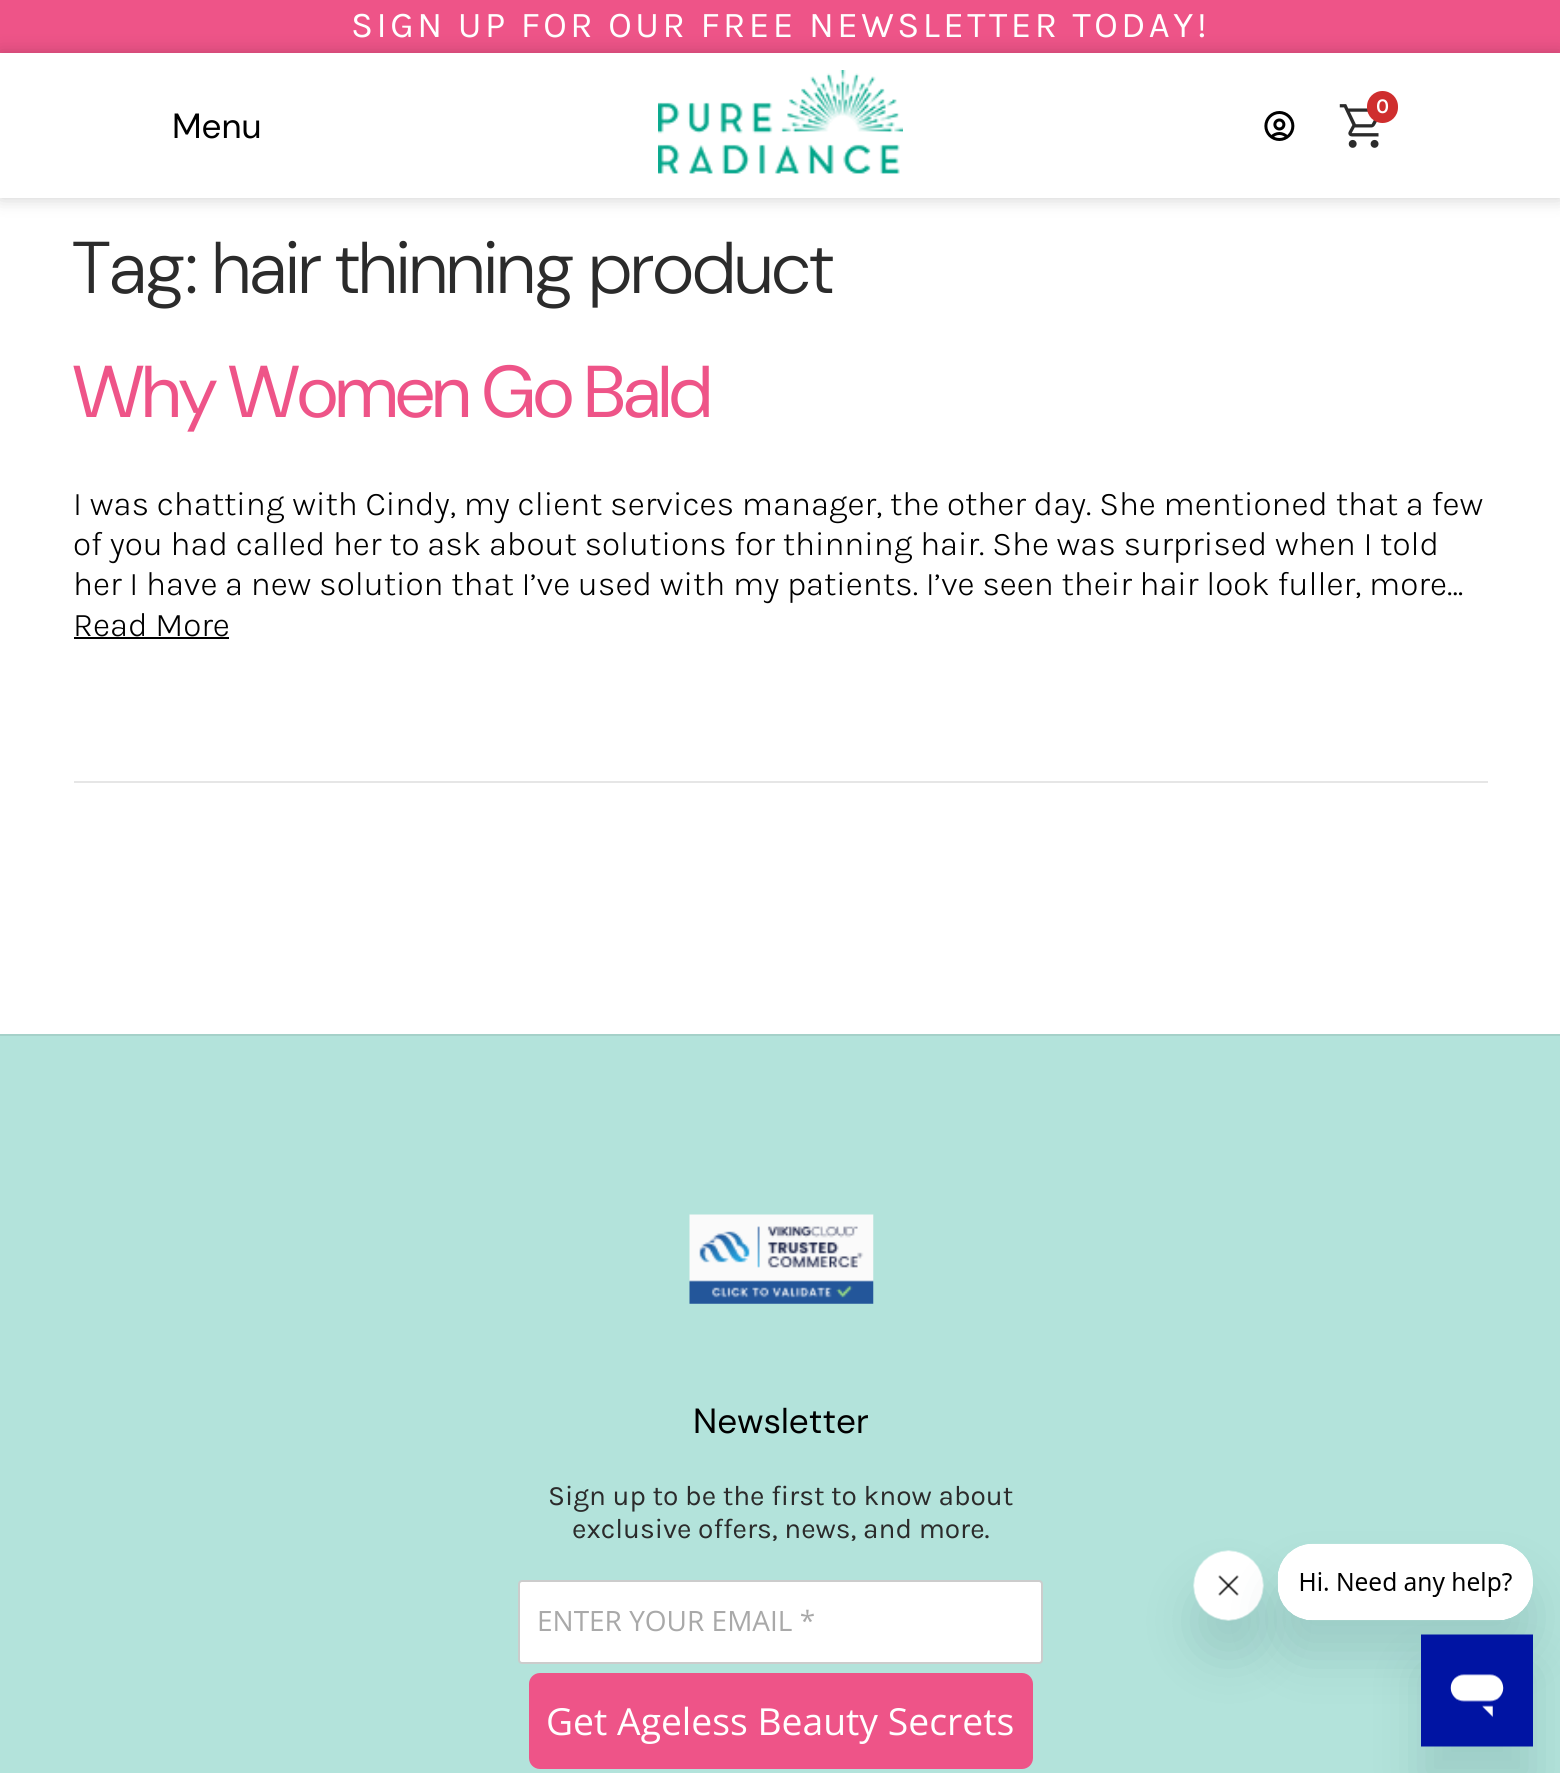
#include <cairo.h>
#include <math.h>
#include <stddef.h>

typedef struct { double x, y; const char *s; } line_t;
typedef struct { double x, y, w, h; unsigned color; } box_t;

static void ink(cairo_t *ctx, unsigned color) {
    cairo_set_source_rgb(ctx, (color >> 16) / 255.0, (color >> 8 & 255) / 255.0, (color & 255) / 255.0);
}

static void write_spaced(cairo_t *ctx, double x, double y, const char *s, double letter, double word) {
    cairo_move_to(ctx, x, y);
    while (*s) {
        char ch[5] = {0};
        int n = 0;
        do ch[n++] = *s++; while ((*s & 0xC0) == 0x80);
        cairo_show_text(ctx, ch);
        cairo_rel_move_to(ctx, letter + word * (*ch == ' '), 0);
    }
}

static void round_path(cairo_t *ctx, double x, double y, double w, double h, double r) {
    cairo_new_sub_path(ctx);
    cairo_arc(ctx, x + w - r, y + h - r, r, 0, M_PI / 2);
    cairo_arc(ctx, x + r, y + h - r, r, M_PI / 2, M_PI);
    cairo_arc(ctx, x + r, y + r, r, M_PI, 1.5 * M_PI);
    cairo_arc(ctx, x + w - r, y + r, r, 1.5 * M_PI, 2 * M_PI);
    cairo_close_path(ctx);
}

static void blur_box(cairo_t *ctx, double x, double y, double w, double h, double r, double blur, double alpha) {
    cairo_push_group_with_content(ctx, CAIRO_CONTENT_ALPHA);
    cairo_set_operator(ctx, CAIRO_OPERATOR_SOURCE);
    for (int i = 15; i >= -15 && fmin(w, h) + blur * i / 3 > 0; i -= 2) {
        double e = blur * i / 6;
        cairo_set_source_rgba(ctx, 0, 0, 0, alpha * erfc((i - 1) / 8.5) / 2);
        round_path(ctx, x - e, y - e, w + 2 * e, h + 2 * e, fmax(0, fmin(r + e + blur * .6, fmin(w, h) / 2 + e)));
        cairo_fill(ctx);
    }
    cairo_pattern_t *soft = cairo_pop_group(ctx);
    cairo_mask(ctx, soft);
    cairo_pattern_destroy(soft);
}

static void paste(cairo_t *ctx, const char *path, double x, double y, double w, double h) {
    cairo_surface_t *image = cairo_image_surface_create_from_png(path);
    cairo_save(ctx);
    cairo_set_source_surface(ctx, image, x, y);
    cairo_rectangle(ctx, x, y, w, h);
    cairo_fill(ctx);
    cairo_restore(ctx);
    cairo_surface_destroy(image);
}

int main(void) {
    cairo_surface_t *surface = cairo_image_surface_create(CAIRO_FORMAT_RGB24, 1560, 1773);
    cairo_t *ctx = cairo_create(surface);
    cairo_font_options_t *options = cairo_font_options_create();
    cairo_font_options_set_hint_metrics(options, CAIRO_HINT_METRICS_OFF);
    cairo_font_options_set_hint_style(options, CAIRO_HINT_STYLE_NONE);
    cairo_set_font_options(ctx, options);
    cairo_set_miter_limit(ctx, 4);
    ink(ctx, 0xFFFFFF);
    cairo_paint(ctx);
    ink(ctx, 0xEE5488);
    cairo_rectangle(ctx, 0, 0, 1560, 53);
    cairo_fill(ctx);
    cairo_select_font_face(ctx, "Karla", CAIRO_FONT_SLANT_NORMAL, CAIRO_FONT_WEIGHT_NORMAL);
    cairo_set_font_size(ctx, 36.4);
    ink(ctx, 0xFFFFFF);
    write_spaced(ctx, 351, 37, "SIGN UP FOR OUR FREE NEWSLETTER TODAY!", 3.5, 0);
    ink(ctx, 0x000000);
    blur_box(ctx, 0, 53, 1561, 145, 0, 9, 0.2);
    ink(ctx, 0xFFFFFF);
    cairo_rectangle(ctx, 0, 53, 1560, 145);
    cairo_fill(ctx);
    paste(ctx, "media/1.png", 658, 70, 245, 104);
    paste(ctx, "media/2.png", 1339, 104, 40, 44);
    ink(ctx, 0xCF2E2E);
    round_path(ctx, 1367, 91, 31, 32, 15.5);
    cairo_fill(ctx);
    cairo_select_font_face(ctx, "Karla SemiBold", CAIRO_FONT_SLANT_NORMAL, CAIRO_FONT_WEIGHT_NORMAL);
    cairo_set_font_size(ctx, 21);
    ink(ctx, 0xFFFFFF);
    cairo_move_to(ctx, 1376, 113);
    cairo_show_text(ctx, "0");
    paste(ctx, "media/3.png", 1264, 111, 31, 30);
    cairo_select_font_face(ctx, "DM Sans", CAIRO_FONT_SLANT_NORMAL, CAIRO_FONT_WEIGHT_NORMAL);
    cairo_set_font_size(ctx, 35);
    ink(ctx, 0x000000);
    cairo_move_to(ctx, 172, 138);
    cairo_show_text(ctx, "Menu");
    cairo_select_font_face(ctx, "DM Sans Light", CAIRO_FONT_SLANT_NORMAL, CAIRO_FONT_WEIGHT_NORMAL);
    cairo_set_font_size(ctx, 73.25);
    ink(ctx, 0x2B2B2B);
    cairo_move_to(ctx, 73, 293);
    cairo_show_text(ctx, "Tag: hair thinning product");
    ink(ctx, 0xE6E6E6);
    cairo_rectangle(ctx, 74, 781, 1414, 2);
    cairo_fill(ctx);
    cairo_select_font_face(ctx, "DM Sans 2", CAIRO_FONT_SLANT_NORMAL, CAIRO_FONT_WEIGHT_NORMAL);
    ink(ctx, 0xEE5488);
    write_spaced(ctx, 73, 417, "Why Women Go Bald", -1.75, 0);
    cairo_select_font_face(ctx, "Karla Light", CAIRO_FONT_SLANT_NORMAL, CAIRO_FONT_WEIGHT_NORMAL);
    cairo_set_font_size(ctx, 33.6);
    ink(ctx, 0x000000);
    {
        static const line_t items[] = {
            {73, 515, "I was chatting with Cindy, my client services manager, the other day. She mentioned that a few"},
            {73, 555, "of you had called her to ask about solutions for thinning hair. She was surprised when I told"},
            {73, 595, "her I have a new solution that I’ve used with my patients. I’ve seen their hair look fuller, more…"},
            {73, 636, "Read More"},
        };
        for (size_t i = 0; i < sizeof items / sizeof *items; i++) {
            cairo_move_to(ctx, items[i].x, items[i].y);
            cairo_show_text(ctx, items[i].s);
        }
    }
    {
        static const box_t items[] = {
            {74, 637, 155, 2, 0x000000},
            {0, 1036, 1560, 737, 0xB3E3DB},
            {0, 1034, 1560, 2, 0xA5D1C9},
        };
        for (size_t i = 0; i < sizeof items / sizeof *items; i++) {
            ink(ctx, items[i].color);
            cairo_rectangle(ctx, items[i].x, items[i].y, items[i].w, items[i].h);
            cairo_fill(ctx);
        }
    }
    paste(ctx, "media/4.png", 689, 1214, 185, 90);
    cairo_select_font_face(ctx, "DM Sans", CAIRO_FONT_SLANT_NORMAL, CAIRO_FONT_WEIGHT_NORMAL);
    cairo_set_font_size(ctx, 35);
    ink(ctx, 0x000000);
    cairo_move_to(ctx, 693, 1433);
    cairo_show_text(ctx, "Newsletter");
    cairo_select_font_face(ctx, "Karla", CAIRO_FONT_SLANT_NORMAL, CAIRO_FONT_WEIGHT_NORMAL);
    cairo_set_font_size(ctx, 28);
    ink(ctx, 0x2B2B2B);
    cairo_move_to(ctx, 548, 1505);
    cairo_show_text(ctx, "Sign up to be the first to know about");
    cairo_move_to(ctx, 572, 1538);
    cairo_show_text(ctx, "exclusive offers, news, and more.");
    ink(ctx, 0xFFFFFF);
    round_path(ctx, 519, 1581, 523, 82, 3);
    cairo_fill_preserve(ctx);
    ink(ctx, 0xCCCCCC);
    cairo_stroke(ctx);
    cairo_select_font_face(ctx, "Open Sans", CAIRO_FONT_SLANT_NORMAL, CAIRO_FONT_WEIGHT_NORMAL);
    ink(ctx, 0xA9A9A9);
    cairo_move_to(ctx, 537, 1631);
    cairo_show_text(ctx, "ENTER YOUR EMAIL *");
    ink(ctx, 0xEE5488);
    round_path(ctx, 529, 1673, 504, 96, 11);
    cairo_fill(ctx);
    cairo_set_font_size(ctx, 37.3);
    ink(ctx, 0xFFFFFF);
    cairo_move_to(ctx, 546, 1735);
    cairo_show_text(ctx, "Get Ageless Beauty Secrets");
    ink(ctx, 0x17494D);
    blur_box(ctx, 1194, 1586, 70, 70, 35, 26, 0.15);
    paste(ctx, "media/6.png", 1193, 1550, 71, 71);
    blur_box(ctx, 1278, 1579, 255, 77, 35, 26, 0.15);
    paste(ctx, "media/5.png", 1277, 1543, 256, 78);
    blur_box(ctx, 1421, 1670, 112, 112, 0, 26, 0.15);
    paste(ctx, "media/7.png", 1421, 1634, 112, 113);
    cairo_surface_write_to_png(surface, "image.png");
    cairo_font_options_destroy(options);
    cairo_destroy(ctx);
    cairo_surface_destroy(surface);
    return 0;
}
